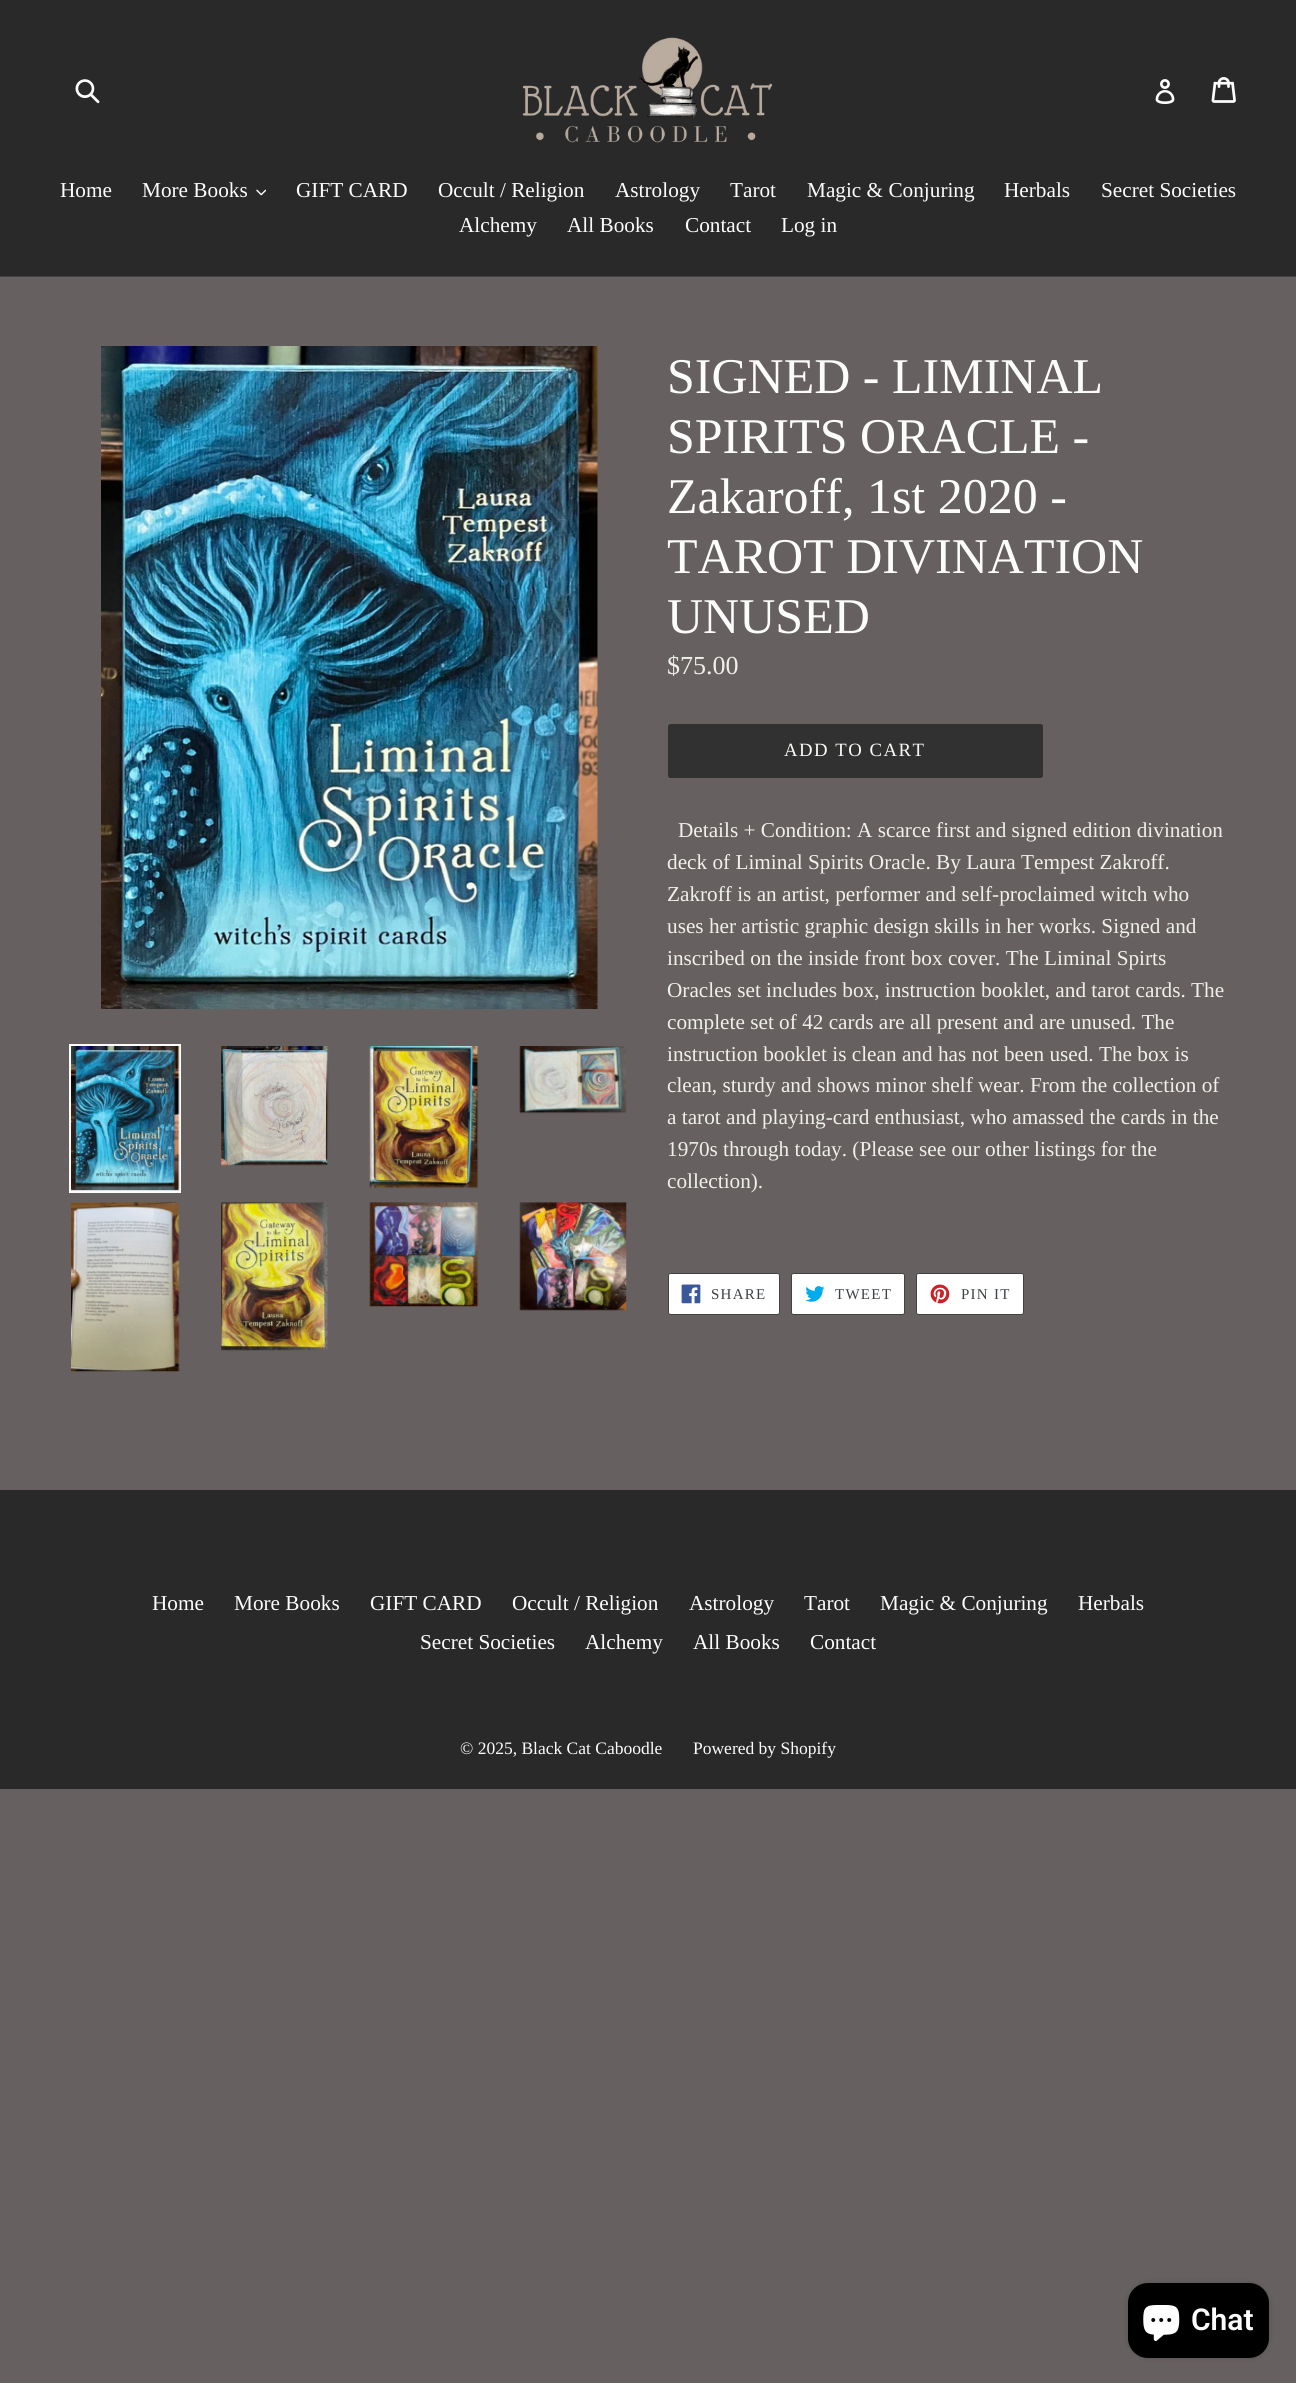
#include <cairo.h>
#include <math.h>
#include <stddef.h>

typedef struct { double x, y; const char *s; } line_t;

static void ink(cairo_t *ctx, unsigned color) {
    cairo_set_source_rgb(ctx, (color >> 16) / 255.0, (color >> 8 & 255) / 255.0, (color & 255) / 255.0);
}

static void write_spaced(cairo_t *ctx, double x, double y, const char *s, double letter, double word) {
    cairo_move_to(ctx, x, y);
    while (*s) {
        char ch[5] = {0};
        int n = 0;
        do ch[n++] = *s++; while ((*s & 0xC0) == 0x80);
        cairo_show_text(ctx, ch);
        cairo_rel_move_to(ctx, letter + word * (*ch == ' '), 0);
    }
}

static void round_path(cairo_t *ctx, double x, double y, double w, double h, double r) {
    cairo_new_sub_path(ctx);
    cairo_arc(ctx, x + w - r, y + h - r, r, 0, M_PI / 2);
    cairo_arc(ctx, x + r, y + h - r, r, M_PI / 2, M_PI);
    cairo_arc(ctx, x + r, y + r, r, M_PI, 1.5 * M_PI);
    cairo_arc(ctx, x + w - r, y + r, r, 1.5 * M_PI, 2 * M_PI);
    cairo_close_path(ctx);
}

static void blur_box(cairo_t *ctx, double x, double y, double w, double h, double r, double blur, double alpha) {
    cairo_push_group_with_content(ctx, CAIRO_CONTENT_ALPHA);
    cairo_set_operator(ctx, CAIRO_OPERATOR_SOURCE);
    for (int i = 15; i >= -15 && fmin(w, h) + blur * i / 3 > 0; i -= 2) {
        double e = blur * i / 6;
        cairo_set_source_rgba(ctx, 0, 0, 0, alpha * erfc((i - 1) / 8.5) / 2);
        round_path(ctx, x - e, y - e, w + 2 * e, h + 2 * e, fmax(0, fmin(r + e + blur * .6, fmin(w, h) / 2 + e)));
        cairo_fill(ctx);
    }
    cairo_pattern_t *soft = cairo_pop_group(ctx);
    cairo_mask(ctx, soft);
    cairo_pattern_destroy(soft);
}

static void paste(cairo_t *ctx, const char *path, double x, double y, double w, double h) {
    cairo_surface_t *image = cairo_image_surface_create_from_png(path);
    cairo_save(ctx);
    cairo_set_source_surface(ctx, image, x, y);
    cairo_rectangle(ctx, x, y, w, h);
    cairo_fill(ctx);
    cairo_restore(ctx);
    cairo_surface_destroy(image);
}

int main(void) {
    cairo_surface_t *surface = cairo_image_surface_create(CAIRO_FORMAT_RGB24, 1296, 2383);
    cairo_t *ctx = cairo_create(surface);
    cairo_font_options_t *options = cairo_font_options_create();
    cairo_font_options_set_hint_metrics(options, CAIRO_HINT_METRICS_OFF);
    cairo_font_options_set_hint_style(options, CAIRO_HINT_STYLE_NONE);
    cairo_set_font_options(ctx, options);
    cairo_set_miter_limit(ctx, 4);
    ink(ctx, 0x666060);
    cairo_paint(ctx);
    ink(ctx, 0x292929);
    cairo_rectangle(ctx, 0, 0, 1296, 276);
    cairo_fill(ctx);
    paste(ctx, "media/1.png", 75, 79, 25, 25);
    paste(ctx, "media/2.png", 522, 37, 251, 106);
    paste(ctx, "media/3.png", 1155, 79, 20, 25);
    paste(ctx, "media/4.png", 1211, 77, 25, 26);
    ink(ctx, 0x424242);
    cairo_rectangle(ctx, 0, 276, 1296, 1);
    cairo_fill(ctx);
    cairo_select_font_face(ctx, "Liberation Serif", CAIRO_FONT_SLANT_NORMAL, CAIRO_FONT_WEIGHT_NORMAL);
    cairo_set_font_size(ctx, 21.25);
    ink(ctx, 0xFCFCFC);
    cairo_move_to(ctx, 60, 197);
    cairo_show_text(ctx, "Home");
    cairo_move_to(ctx, 142, 197);
    cairo_show_text(ctx, "More Books");
    paste(ctx, "media/5.png", 256, 189, 10, 7);
    {
        static const line_t items[] = {
            {296, 197, "GIFT CARD"},
            {438, 197, "Occult / Religion"},
            {615, 197, "Astrology"},
            {730, 197, "Tarot"},
            {807, 197, "Magic & Conjuring"},
            {1004, 197, "Herbals"},
            {1101, 197, "Secret Societies"},
            {459, 232, "Alchemy"},
            {567, 232, "All Books"},
            {685, 232, "Contact"},
            {781, 232, "Log in"},
        };
        for (size_t i = 0; i < sizeof items / sizeof *items; i++) {
            cairo_move_to(ctx, items[i].x, items[i].y);
            cairo_show_text(ctx, items[i].s);
        }
    }
    paste(ctx, "media/6.png", 101, 346, 497, 663);
    cairo_rectangle(ctx, 70.5, 1045.5, 109, 146);
    cairo_set_line_width(ctx, 3);
    cairo_stroke(ctx);
    paste(ctx, "media/7.png", 71, 1046, 109, 145);
    paste(ctx, "media/8.png", 221, 1046, 108, 120);
    paste(ctx, "media/9.png", 369, 1046, 110, 143);
    paste(ctx, "media/10.png", 519, 1046, 108, 68);
    paste(ctx, "media/11.png", 71, 1202, 109, 170);
    paste(ctx, "media/12.png", 221, 1202, 107, 149);
    paste(ctx, "media/13.png", 369, 1202, 110, 105);
    paste(ctx, "media/14.png", 519, 1202, 108, 109);
    cairo_set_font_size(ctx, 50);
    {
        static const line_t items[] = {
            {667, 393, "SIGNED - LIMINAL"},
            {667, 453, "SPIRITS ORACLE -"},
            {667, 513, "Zakaroff, 1st 2020 -"},
            {667, 573, "TAROT DIVINATION"},
            {667, 633, "UNUSED"},
        };
        for (size_t i = 0; i < sizeof items / sizeof *items; i++) {
            cairo_move_to(ctx, items[i].x, items[i].y);
            cairo_show_text(ctx, items[i].s);
        }
    }
    cairo_set_font_size(ctx, 26);
    ink(ctx, 0xEFF0E9);
    cairo_move_to(ctx, 667, 674);
    cairo_show_text(ctx, "$75.00");
    ink(ctx, 0x323131);
    round_path(ctx, 668, 724, 375, 54, 2.5);
    cairo_fill(ctx);
    cairo_set_font_size(ctx, 18.75);
    ink(ctx, 0xFAFBF6);
    write_spaced(ctx, 784, 756, "ADD TO CART", 1.5, 0);
    cairo_set_font_size(ctx, 21.25);
    ink(ctx, 0xEFF0E9);
    {
        static const line_t items[] = {
            {678, 837, "Details + Condition: A scarce first and signed edition divination"},
            {667, 869, "deck of Liminal Spirits Oracle. By Laura Tempest Zakroff."},
            {667, 901, "Zakroff is an artist, performer and self-proclaimed witch who"},
            {667, 933, "uses her artistic graphic design skills in her works. Signed and"},
            {667, 965, "inscribed on the inside front box cover. The Liminal Spirts"},
            {667, 997, "Oracles set includes box, instruction booklet, and tarot cards. The"},
            {667, 1029, "complete set of 42 cards are all present and are unused. The"},
            {667, 1061, "instruction booklet is clean and has not been used. The box is"},
            {667, 1092, "clean, sturdy and shows minor shelf wear. From the collection of"},
            {667, 1124, "a tarot and playing-card enthusiast, who amassed the cards in the"},
            {667, 1156, "1970s through today. (Please see our other listings for the"},
            {667, 1188, "collection)."},
        };
        for (size_t i = 0; i < sizeof items / sizeof *items; i++) {
            cairo_move_to(ctx, items[i].x, items[i].y);
            cairo_show_text(ctx, items[i].s);
        }
    }
    ink(ctx, 0xFFFFFF);
    round_path(ctx, 668.5, 1273.5, 111, 41, 2);
    cairo_fill_preserve(ctx);
    ink(ctx, 0x424242);
    cairo_set_line_width(ctx, 1);
    cairo_stroke(ctx);
    paste(ctx, "media/15.png", 681, 1284, 20, 20);
    cairo_set_font_size(ctx, 15);
    ink(ctx, 0x3D4246);
    write_spaced(ctx, 711, 1299, "SHARE", 1.25, 0);
    ink(ctx, 0xFFFFFF);
    round_path(ctx, 791.5, 1273.5, 113, 41, 2);
    cairo_fill_preserve(ctx);
    ink(ctx, 0x424242);
    cairo_stroke(ctx);
    paste(ctx, "media/16.png", 805, 1286, 20, 16);
    ink(ctx, 0x3D4246);
    write_spaced(ctx, 835, 1299, "TWEET", 1.25, 0);
    ink(ctx, 0xFFFFFF);
    round_path(ctx, 916.5, 1273.5, 107, 41, 2);
    cairo_fill_preserve(ctx);
    ink(ctx, 0x424242);
    cairo_stroke(ctx);
    paste(ctx, "media/17.png", 930, 1284, 20, 20);
    ink(ctx, 0x3D4246);
    write_spaced(ctx, 961, 1299, "PIN IT", 1.25, 0);
    ink(ctx, 0x292929);
    cairo_rectangle(ctx, 0, 1490, 1296, 299);
    cairo_fill(ctx);
    cairo_set_font_size(ctx, 21.25);
    ink(ctx, 0xFCFCFC);
    {
        static const line_t items[] = {
            {152, 1610, "Home"},
            {234, 1610, "More Books"},
            {370, 1610, "GIFT CARD"},
            {512, 1610, "Occult / Religion"},
            {689, 1610, "Astrology"},
            {804, 1610, "Tarot"},
            {880, 1610, "Magic & Conjuring"},
            {1078, 1610, "Herbals"},
            {420, 1649, "Secret Societies"},
            {585, 1649, "Alchemy"},
            {693, 1649, "All Books"},
            {810, 1649, "Contact"},
        };
        for (size_t i = 0; i < sizeof items / sizeof *items; i++) {
            cairo_move_to(ctx, items[i].x, items[i].y);
            cairo_show_text(ctx, items[i].s);
        }
    }
    cairo_set_font_size(ctx, 17.5);
    cairo_move_to(ctx, 460, 1754);
    cairo_show_text(ctx, "© 2025, Black Cat Caboodle");
    cairo_move_to(ctx, 693, 1754);
    cairo_show_text(ctx, "Powered by Shopify");
    ink(ctx, 0x000000);
    blur_box(ctx, 1128, 2283, 141, 75, 20, 3, 0.15);
    ink(ctx, 0x000000);
    round_path(ctx, 1128, 2283, 141, 75, 20);
    cairo_fill(ctx);
    paste(ctx, "media/18.png", 1143, 2305, 37, 36);
    cairo_select_font_face(ctx, "Roboto SemiBold", CAIRO_FONT_SLANT_NORMAL, CAIRO_FONT_WEIGHT_NORMAL);
    cairo_set_font_size(ctx, 30);
    ink(ctx, 0xFCFCFC);
    cairo_move_to(ctx, 1191, 2330);
    cairo_show_text(ctx, "Chat");
    cairo_surface_write_to_png(surface, "image.png");
    cairo_font_options_destroy(options);
    cairo_destroy(ctx);
    cairo_surface_destroy(surface);
    return 0;
}
